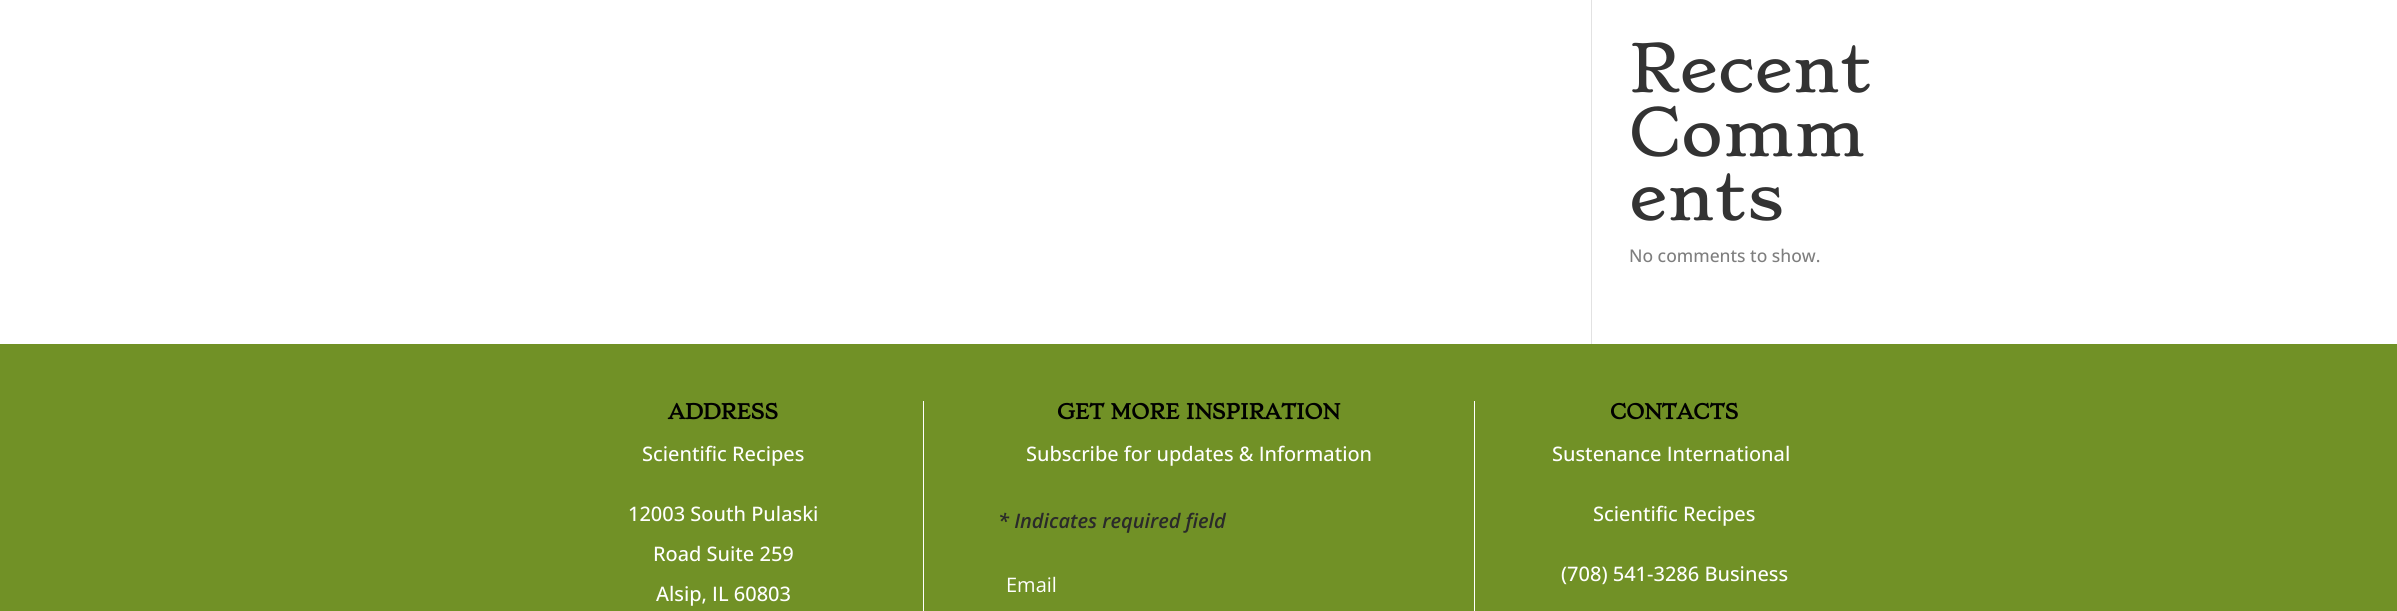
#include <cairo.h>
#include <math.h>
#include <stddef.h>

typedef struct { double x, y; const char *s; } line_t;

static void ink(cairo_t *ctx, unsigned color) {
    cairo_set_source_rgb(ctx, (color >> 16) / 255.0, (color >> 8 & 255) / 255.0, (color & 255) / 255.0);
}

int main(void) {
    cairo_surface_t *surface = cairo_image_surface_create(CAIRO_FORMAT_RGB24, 2397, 611);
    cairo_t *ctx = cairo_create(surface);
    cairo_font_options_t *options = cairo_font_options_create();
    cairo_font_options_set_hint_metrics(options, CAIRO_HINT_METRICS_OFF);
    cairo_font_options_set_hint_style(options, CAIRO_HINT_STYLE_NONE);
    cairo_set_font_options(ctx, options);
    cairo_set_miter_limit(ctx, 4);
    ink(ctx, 0xFFFFFF);
    cairo_paint(ctx);
    ink(ctx, 0xE2E2E2);
    cairo_rectangle(ctx, 1591, 0, 1, 344);
    cairo_fill(ctx);
    cairo_select_font_face(ctx, "Stoke", CAIRO_FONT_SLANT_NORMAL, CAIRO_FONT_WEIGHT_NORMAL);
    cairo_set_font_size(ctx, 64);
    ink(ctx, 0x333333);
    {
        static const line_t items[] = {
            {1629, 92, "Recent"},
            {1629, 156, "Comm"},
            {1629, 220, "ents"},
        };
        for (size_t i = 0; i < sizeof items / sizeof *items; i++) {
            cairo_move_to(ctx, items[i].x, items[i].y);
            cairo_show_text(ctx, items[i].s);
        }
    }
    cairo_select_font_face(ctx, "Open Sans Medium", CAIRO_FONT_SLANT_NORMAL, CAIRO_FONT_WEIGHT_NORMAL);
    cairo_set_font_size(ctx, 17.5);
    ink(ctx, 0x7E7E7E);
    cairo_move_to(ctx, 1629, 262);
    cairo_show_text(ctx, "No comments to show.");
    ink(ctx, 0x719126);
    cairo_rectangle(ctx, 0, 344, 2397, 267);
    cairo_fill(ctx);
    ink(ctx, 0xFFFFFF);
    cairo_rectangle(ctx, 923, 401, 1, 210);
    cairo_fill(ctx);
    cairo_select_font_face(ctx, "Stoke", CAIRO_FONT_SLANT_NORMAL, CAIRO_FONT_WEIGHT_BOLD);
    cairo_set_font_size(ctx, 20);
    ink(ctx, 0x000000);
    cairo_move_to(ctx, 668, 419);
    cairo_show_text(ctx, "ADDRESS");
    cairo_select_font_face(ctx, "Open Sans Medium", CAIRO_FONT_SLANT_NORMAL, CAIRO_FONT_WEIGHT_NORMAL);
    ink(ctx, 0xFFFFFF);
    {
        static const line_t items[] = {
            {642, 461, "Scientific Recipes"},
            {628, 521, "12003 South Pulaski"},
            {653, 561, "Road Suite 259"},
            {656, 601, "Alsip, IL 60803"},
        };
        for (size_t i = 0; i < sizeof items / sizeof *items; i++) {
            cairo_move_to(ctx, items[i].x, items[i].y);
            cairo_show_text(ctx, items[i].s);
        }
    }
    cairo_select_font_face(ctx, "Stoke", CAIRO_FONT_SLANT_NORMAL, CAIRO_FONT_WEIGHT_BOLD);
    ink(ctx, 0x000000);
    cairo_move_to(ctx, 1057, 419);
    cairo_show_text(ctx, "GET MORE INSPIRATION");
    cairo_select_font_face(ctx, "Open Sans Medium", CAIRO_FONT_SLANT_NORMAL, CAIRO_FONT_WEIGHT_NORMAL);
    ink(ctx, 0xFFFFFF);
    cairo_move_to(ctx, 1026, 461);
    cairo_show_text(ctx, "Subscribe for updates & Information");
    cairo_select_font_face(ctx, "Open Sans SemiBold", CAIRO_FONT_SLANT_ITALIC, CAIRO_FONT_WEIGHT_NORMAL);
    ink(ctx, 0x2A2A2A);
    cairo_move_to(ctx, 998, 528);
    cairo_show_text(ctx, "* Indicates required field");
    cairo_select_font_face(ctx, "Open Sans", CAIRO_FONT_SLANT_NORMAL, CAIRO_FONT_WEIGHT_NORMAL);
    ink(ctx, 0xFFFFFF);
    cairo_move_to(ctx, 1006, 592);
    cairo_show_text(ctx, "Email");
    cairo_rectangle(ctx, 1474, 401, 1, 210);
    cairo_fill(ctx);
    cairo_select_font_face(ctx, "Stoke", CAIRO_FONT_SLANT_NORMAL, CAIRO_FONT_WEIGHT_BOLD);
    ink(ctx, 0x000000);
    cairo_move_to(ctx, 1610, 419);
    cairo_show_text(ctx, "CONTACTS");
    cairo_select_font_face(ctx, "Open Sans Medium", CAIRO_FONT_SLANT_NORMAL, CAIRO_FONT_WEIGHT_NORMAL);
    ink(ctx, 0xFFFFFF);
    {
        static const line_t items[] = {
            {1552, 461, "Sustenance International"},
            {1593, 521, "Scientific Recipes"},
            {1561, 581, "(708) 541-3286 Business"},
        };
        for (size_t i = 0; i < sizeof items / sizeof *items; i++) {
            cairo_move_to(ctx, items[i].x, items[i].y);
            cairo_show_text(ctx, items[i].s);
        }
    }
    cairo_surface_write_to_png(surface, "image.png");
    cairo_font_options_destroy(options);
    cairo_destroy(ctx);
    cairo_surface_destroy(surface);
    return 0;
}
